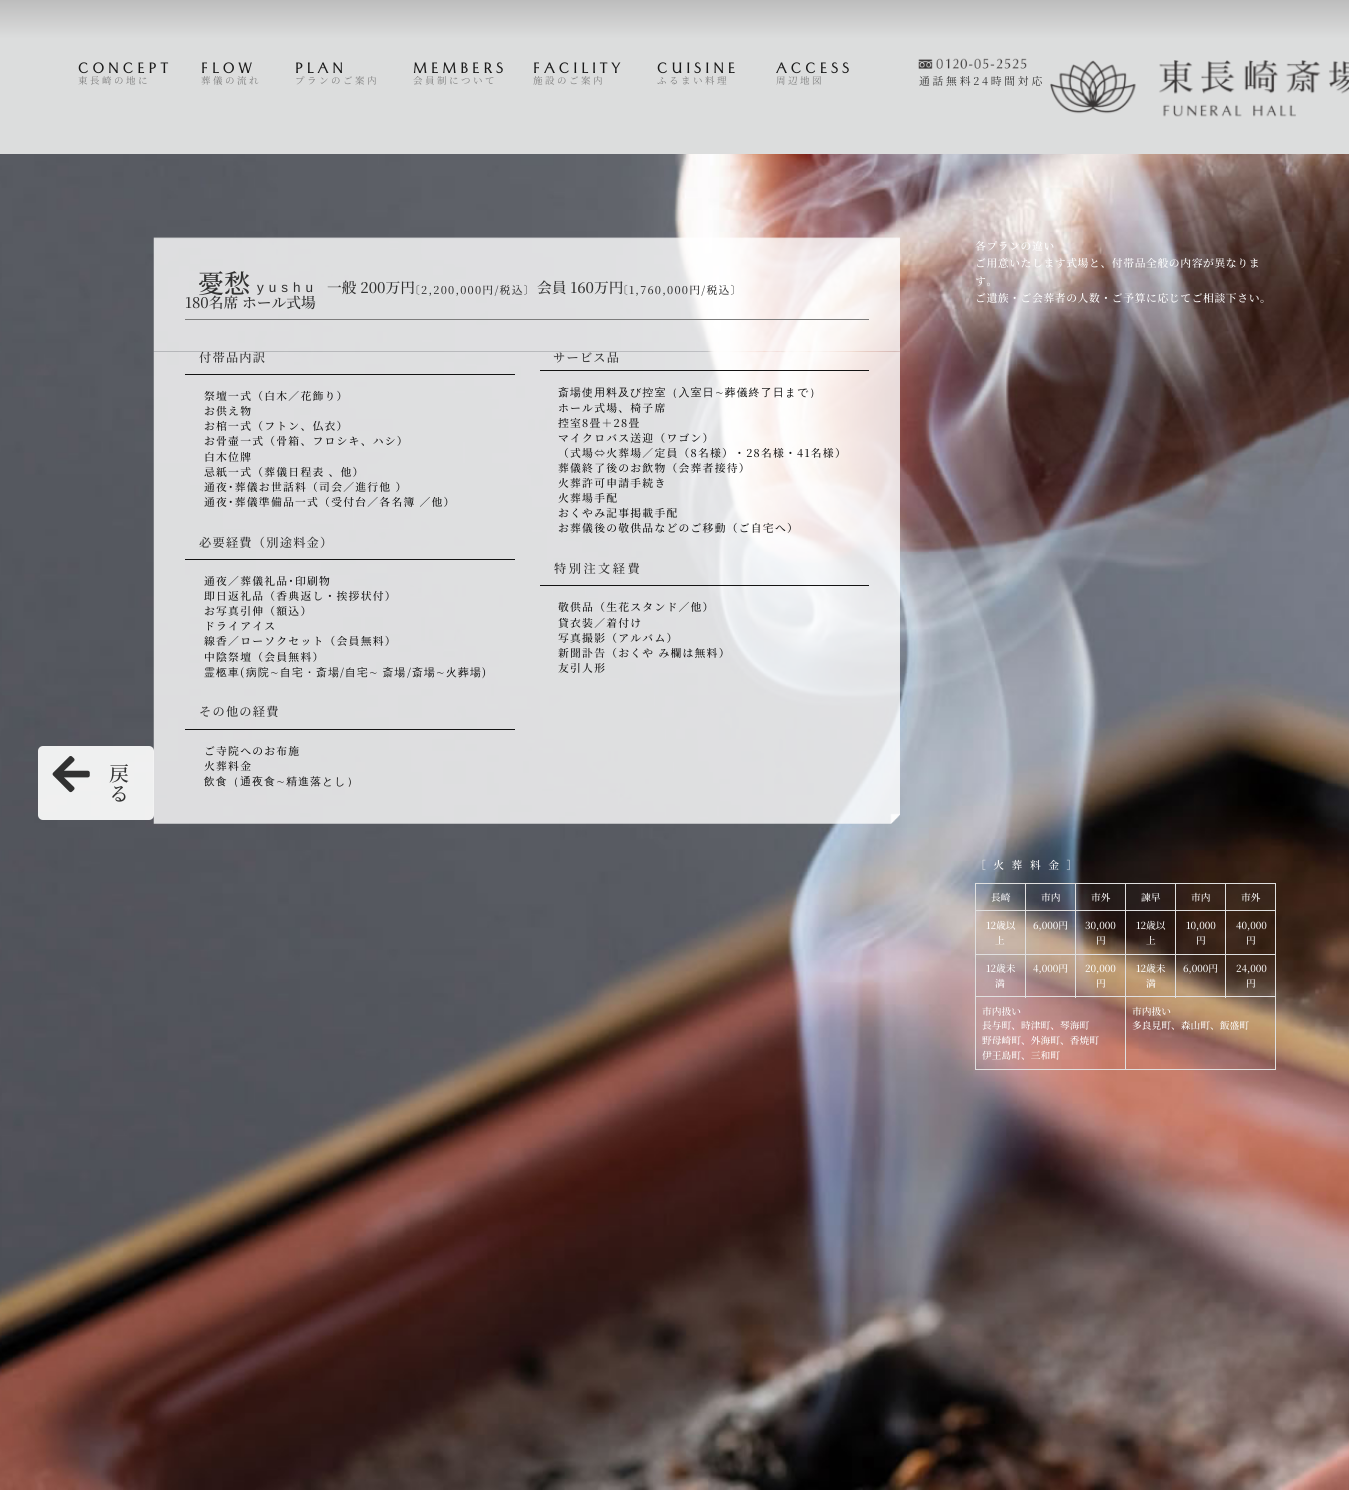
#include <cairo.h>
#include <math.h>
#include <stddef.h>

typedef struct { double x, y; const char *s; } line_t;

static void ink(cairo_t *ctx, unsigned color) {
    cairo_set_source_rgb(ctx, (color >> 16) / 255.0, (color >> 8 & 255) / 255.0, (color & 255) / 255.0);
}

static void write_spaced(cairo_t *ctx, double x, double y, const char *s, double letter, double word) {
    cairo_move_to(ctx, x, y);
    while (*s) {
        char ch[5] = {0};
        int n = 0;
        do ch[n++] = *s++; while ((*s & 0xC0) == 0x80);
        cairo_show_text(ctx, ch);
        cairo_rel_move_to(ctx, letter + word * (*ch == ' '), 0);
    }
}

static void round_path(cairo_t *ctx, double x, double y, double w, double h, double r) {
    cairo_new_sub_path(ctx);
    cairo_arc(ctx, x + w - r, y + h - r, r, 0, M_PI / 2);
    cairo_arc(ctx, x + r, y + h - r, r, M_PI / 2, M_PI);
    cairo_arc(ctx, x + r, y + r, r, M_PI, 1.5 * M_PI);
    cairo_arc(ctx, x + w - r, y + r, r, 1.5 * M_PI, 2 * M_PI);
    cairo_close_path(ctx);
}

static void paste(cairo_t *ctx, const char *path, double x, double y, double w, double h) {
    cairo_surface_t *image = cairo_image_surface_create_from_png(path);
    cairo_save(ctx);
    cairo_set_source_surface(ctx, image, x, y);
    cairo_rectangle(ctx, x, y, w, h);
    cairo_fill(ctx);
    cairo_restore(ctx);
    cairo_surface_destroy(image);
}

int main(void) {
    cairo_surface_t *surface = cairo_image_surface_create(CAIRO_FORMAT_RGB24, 1349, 1490);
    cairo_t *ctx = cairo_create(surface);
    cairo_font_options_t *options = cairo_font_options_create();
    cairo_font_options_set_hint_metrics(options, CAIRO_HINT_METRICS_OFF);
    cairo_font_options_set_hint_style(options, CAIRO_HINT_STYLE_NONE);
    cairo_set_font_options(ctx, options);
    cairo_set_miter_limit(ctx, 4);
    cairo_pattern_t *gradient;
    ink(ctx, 0xFFFFFF);
    cairo_paint(ctx);
    gradient = cairo_pattern_create_linear(675, 0, 675, 154);
    cairo_pattern_add_color_stop_rgba(gradient, 0, 0.741, 0.741, 0.741, 1);
    cairo_pattern_add_color_stop_rgba(gradient, 0.25, 0.863, 0.867, 0.867, 1);
    cairo_set_source(ctx, gradient);
    cairo_pattern_destroy(gradient);
    cairo_rectangle(ctx, 0, 0, 1349, 154);
    cairo_fill(ctx);
    cairo_select_font_face(ctx, "Tenali Ramakrishna", CAIRO_FONT_SLANT_NORMAL, CAIRO_FONT_WEIGHT_NORMAL);
    cairo_set_font_size(ctx, 21.5);
    ink(ctx, 0x1B1B1B);
    write_spaced(ctx, 78, 73, "CONCEPT", 3.75, 0);
    cairo_select_font_face(ctx, "Noto Serif JP", CAIRO_FONT_SLANT_NORMAL, CAIRO_FONT_WEIGHT_NORMAL);
    cairo_set_font_size(ctx, 9.5);
    ink(ctx, 0x7C7C7C);
    write_spaced(ctx, 78, 84, "東長崎の地に", 2.5, 0);
    cairo_select_font_face(ctx, "Tenali Ramakrishna", CAIRO_FONT_SLANT_NORMAL, CAIRO_FONT_WEIGHT_NORMAL);
    cairo_set_font_size(ctx, 21.5);
    ink(ctx, 0x1B1B1B);
    write_spaced(ctx, 201, 73, "FLOW", 3.75, 0);
    cairo_select_font_face(ctx, "Noto Serif JP", CAIRO_FONT_SLANT_NORMAL, CAIRO_FONT_WEIGHT_NORMAL);
    cairo_set_font_size(ctx, 9.5);
    ink(ctx, 0x7C7C7C);
    write_spaced(ctx, 201, 84, "葬儀の流れ", 2.5, 0);
    cairo_select_font_face(ctx, "Tenali Ramakrishna", CAIRO_FONT_SLANT_NORMAL, CAIRO_FONT_WEIGHT_NORMAL);
    cairo_set_font_size(ctx, 21.5);
    ink(ctx, 0x1B1B1B);
    write_spaced(ctx, 295, 73, "PLAN", 3.75, 0);
    cairo_select_font_face(ctx, "Noto Serif JP", CAIRO_FONT_SLANT_NORMAL, CAIRO_FONT_WEIGHT_NORMAL);
    cairo_set_font_size(ctx, 9.5);
    ink(ctx, 0x7C7C7C);
    write_spaced(ctx, 295, 84, "プランのご案内", 2.5, 0);
    cairo_select_font_face(ctx, "Tenali Ramakrishna", CAIRO_FONT_SLANT_NORMAL, CAIRO_FONT_WEIGHT_NORMAL);
    cairo_set_font_size(ctx, 21.5);
    ink(ctx, 0x1B1B1B);
    write_spaced(ctx, 413, 73, "MEMBERS", 3.75, 0);
    cairo_select_font_face(ctx, "Noto Serif JP", CAIRO_FONT_SLANT_NORMAL, CAIRO_FONT_WEIGHT_NORMAL);
    cairo_set_font_size(ctx, 9.5);
    ink(ctx, 0x7C7C7C);
    write_spaced(ctx, 413, 84, "会員制について", 2.5, 0);
    cairo_select_font_face(ctx, "Tenali Ramakrishna", CAIRO_FONT_SLANT_NORMAL, CAIRO_FONT_WEIGHT_NORMAL);
    cairo_set_font_size(ctx, 21.5);
    ink(ctx, 0x1B1B1B);
    write_spaced(ctx, 533, 73, "FACILITY", 3.75, 0);
    cairo_select_font_face(ctx, "Noto Serif JP", CAIRO_FONT_SLANT_NORMAL, CAIRO_FONT_WEIGHT_NORMAL);
    cairo_set_font_size(ctx, 9.5);
    ink(ctx, 0x7C7C7C);
    write_spaced(ctx, 533, 84, "施設のご案内", 2.5, 0);
    cairo_select_font_face(ctx, "Tenali Ramakrishna", CAIRO_FONT_SLANT_NORMAL, CAIRO_FONT_WEIGHT_NORMAL);
    cairo_set_font_size(ctx, 21.5);
    ink(ctx, 0x1B1B1B);
    write_spaced(ctx, 657, 73, "CUISINE", 3.75, 0);
    cairo_select_font_face(ctx, "Noto Serif JP", CAIRO_FONT_SLANT_NORMAL, CAIRO_FONT_WEIGHT_NORMAL);
    cairo_set_font_size(ctx, 9.5);
    ink(ctx, 0x7C7C7C);
    write_spaced(ctx, 657, 84, "ふるまい料理", 2.5, 0);
    cairo_select_font_face(ctx, "Tenali Ramakrishna", CAIRO_FONT_SLANT_NORMAL, CAIRO_FONT_WEIGHT_NORMAL);
    cairo_set_font_size(ctx, 21.5);
    ink(ctx, 0x1B1B1B);
    write_spaced(ctx, 776, 73, "ACCESS", 3.75, 0);
    cairo_select_font_face(ctx, "Noto Serif JP", CAIRO_FONT_SLANT_NORMAL, CAIRO_FONT_WEIGHT_NORMAL);
    cairo_set_font_size(ctx, 9.5);
    ink(ctx, 0x7C7C7C);
    write_spaced(ctx, 776, 84, "周辺地図", 2.5, 0);
    paste(ctx, "media/1.png", 918, 58, 109, 11);
    cairo_set_font_size(ctx, 10.8);
    ink(ctx, 0x313131);
    write_spaced(ctx, 919, 85, "通話無料24時間対応", 2.75, 0);
    paste(ctx, "media/2.png", 1050, 60, 299, 57);
    paste(ctx, "media/3.png", 0, 154, 1349, 1336);
    cairo_set_source_rgba(ctx, 1, 1, 1, 0.91);
    round_path(ctx, 38, 746, 116, 74, 5);
    cairo_fill(ctx);
    paste(ctx, "media/4.png", 52, 756, 38, 37);
    cairo_select_font_face(ctx, "Noto Serif JP Medium", CAIRO_FONT_SLANT_NORMAL, CAIRO_FONT_WEIGHT_NORMAL);
    cairo_set_font_size(ctx, 20);
    ink(ctx, 0x313131);
    cairo_move_to(ctx, 109, 781);
    cairo_show_text(ctx, "戻");
    cairo_move_to(ctx, 109, 801);
    cairo_show_text(ctx, "る");
    paste(ctx, "media/5.png", 153, 237, 747, 115);
    ink(ctx, 0x7C7C7C);
    cairo_rectangle(ctx, 185, 319, 684, 1);
    cairo_fill(ctx);
    cairo_set_font_size(ctx, 26);
    ink(ctx, 0x313131);
    cairo_move_to(ctx, 198, 293);
    cairo_show_text(ctx, "憂愁");
    cairo_select_font_face(ctx, "Liberation Sans", CAIRO_FONT_SLANT_NORMAL, CAIRO_FONT_WEIGHT_NORMAL);
    cairo_set_font_size(ctx, 13.5);
    write_spaced(ctx, 257, 292, "yushu", 5, 0);
    cairo_select_font_face(ctx, "Noto Serif JP Medium", CAIRO_FONT_SLANT_NORMAL, CAIRO_FONT_WEIGHT_NORMAL);
    cairo_set_font_size(ctx, 14.75);
    cairo_move_to(ctx, 327, 293);
    cairo_show_text(ctx, "一般 200万円");
    cairo_set_font_size(ctx, 10.8);
    write_spaced(ctx, 409, 294, "〔2,200,000円/税込〕", 1.25, 0);
    cairo_set_font_size(ctx, 14.75);
    cairo_move_to(ctx, 537, 293);
    cairo_show_text(ctx, "会員 160万円");
    cairo_set_font_size(ctx, 10.8);
    write_spaced(ctx, 617, 294, "〔1,760,000円/税込〕", 1.25, 0);
    cairo_set_font_size(ctx, 14.75);
    cairo_move_to(ctx, 185, 308);
    cairo_show_text(ctx, "180名席 ホール式場");
    paste(ctx, "media/6.png", 153, 351, 747, 473);
    ink(ctx, 0x131313);
    cairo_rectangle(ctx, 185, 374, 330, 1);
    cairo_fill(ctx);
    cairo_set_font_size(ctx, 12.2);
    ink(ctx, 0x313131);
    write_spaced(ctx, 199, 362, "付帯品内訳", 1.25, 0);
    cairo_set_font_size(ctx, 10.8);
    ink(ctx, 0x131313);
    {
        static const line_t items[] = {
            {204, 400, "祭壇一式（白木／花飾り）"},
            {204, 415, "お供え物"},
            {204, 430, "お棺一式（フトン、仏衣）"},
            {204, 445, "お骨壷一式（骨箱、フロシキ、ハシ）"},
            {204, 461, "白木位牌"},
            {204, 476, "忌紙一式（葬儀日程表 、他）"},
            {204, 491, "通夜･葬儀お世話料（司会／進行他 ）"},
            {204, 506, "通夜･葬儀準備品一式（受付台／各名簿 ／他）"},
        };
        for (size_t i = 0; i < sizeof items / sizeof *items; i++) {
            write_spaced(ctx, items[i].x, items[i].y, items[i].s, 1.25, 0);
        }
    }
    cairo_rectangle(ctx, 185, 559, 330, 1);
    cairo_fill(ctx);
    cairo_set_font_size(ctx, 12.2);
    ink(ctx, 0x313131);
    write_spaced(ctx, 199, 547, "必要経費（別途料金）", 1.25, 0);
    cairo_set_font_size(ctx, 10.8);
    ink(ctx, 0x131313);
    {
        static const line_t items[] = {
            {204, 585, "通夜／葬儀礼品･印刷物"},
            {204, 600, "即日返礼品（香典返し・挨拶状付）"},
            {204, 615, "お写真引伸（額込）"},
            {204, 630, "ドライアイス"},
            {204, 645, "線香／ローソクセット（会員無料）"},
            {204, 661, "中陰祭壇（会員無料）"},
        };
        for (size_t i = 0; i < sizeof items / sizeof *items; i++) {
            write_spaced(ctx, items[i].x, items[i].y, items[i].s, 1.25, 0);
        }
    }
    cairo_select_font_face(ctx, "WenQuanYi Zen Hei Medium", CAIRO_FONT_SLANT_NORMAL, CAIRO_FONT_WEIGHT_NORMAL);
    write_spaced(ctx, 204, 676, "霊柩車", 1.25, 0);
    cairo_select_font_face(ctx, "Noto Serif JP Medium", CAIRO_FONT_SLANT_NORMAL, CAIRO_FONT_WEIGHT_NORMAL);
    write_spaced(ctx, 240, 676, "(", 1.25, 0);
    cairo_select_font_face(ctx, "WenQuanYi Zen Hei Medium", CAIRO_FONT_SLANT_NORMAL, CAIRO_FONT_WEIGHT_NORMAL);
    write_spaced(ctx, 246, 676, "病院∼自宅・斎場", 1.25, 0);
    cairo_select_font_face(ctx, "Noto Serif JP Medium", CAIRO_FONT_SLANT_NORMAL, CAIRO_FONT_WEIGHT_NORMAL);
    write_spaced(ctx, 340, 676, "/", 1.25, 0);
    cairo_select_font_face(ctx, "WenQuanYi Zen Hei Medium", CAIRO_FONT_SLANT_NORMAL, CAIRO_FONT_WEIGHT_NORMAL);
    write_spaced(ctx, 345, 676, "自宅∼ 斎場", 1.25, -1);
    cairo_select_font_face(ctx, "Noto Serif JP Medium", CAIRO_FONT_SLANT_NORMAL, CAIRO_FONT_WEIGHT_NORMAL);
    write_spaced(ctx, 407, 676, "/", 1.25, 0);
    cairo_select_font_face(ctx, "WenQuanYi Zen Hei Medium", CAIRO_FONT_SLANT_NORMAL, CAIRO_FONT_WEIGHT_NORMAL);
    write_spaced(ctx, 412, 676, "斎場∼火葬場", 1.25, 0);
    cairo_select_font_face(ctx, "Noto Serif JP Medium", CAIRO_FONT_SLANT_NORMAL, CAIRO_FONT_WEIGHT_NORMAL);
    write_spaced(ctx, 482, 676, ")", 1.25, 0);
    cairo_rectangle(ctx, 185, 729, 330, 1);
    cairo_fill(ctx);
    cairo_set_font_size(ctx, 12.2);
    ink(ctx, 0x313131);
    write_spaced(ctx, 199, 716, "その他の経費", 1.25, 0);
    cairo_set_font_size(ctx, 10.8);
    ink(ctx, 0x131313);
    write_spaced(ctx, 204, 755, "ご寺院へのお布施", 1.25, 0);
    write_spaced(ctx, 204, 770, "火葬料金", 1.25, 0);
    cairo_select_font_face(ctx, "WenQuanYi Zen Hei Medium", CAIRO_FONT_SLANT_NORMAL, CAIRO_FONT_WEIGHT_NORMAL);
    write_spaced(ctx, 204, 785, "飲食（通夜食∼精進落とし）", 1.25, 0);
    cairo_rectangle(ctx, 540, 370, 329, 1);
    cairo_fill(ctx);
    cairo_select_font_face(ctx, "Noto Serif JP Medium", CAIRO_FONT_SLANT_NORMAL, CAIRO_FONT_WEIGHT_NORMAL);
    cairo_set_font_size(ctx, 12.2);
    ink(ctx, 0x313131);
    write_spaced(ctx, 553, 362, "サービス品", 1.25, 0);
    cairo_select_font_face(ctx, "WenQuanYi Zen Hei Medium", CAIRO_FONT_SLANT_NORMAL, CAIRO_FONT_WEIGHT_NORMAL);
    cairo_set_font_size(ctx, 10.8);
    ink(ctx, 0x131313);
    write_spaced(ctx, 558, 396, "斎場使用料及び控室（入室日∼葬儀終了日まで）", 1.25, 0);
    cairo_select_font_face(ctx, "Noto Serif JP Medium", CAIRO_FONT_SLANT_NORMAL, CAIRO_FONT_WEIGHT_NORMAL);
    {
        static const line_t items[] = {
            {558, 412, "ホール式場、椅子席"},
            {558, 427, "控室8畳＋28畳"},
            {558, 442, "マイクロバス送迎（ワゴン）"},
            {558, 457, "（式場⇔火葬場／定員（8名様）・28名様・41名様）"},
            {558, 472, "葬儀終了後のお飲物（会葬者接待）"},
            {558, 487, "火葬許可申請手続き"},
            {558, 502, "火葬場手配"},
            {558, 517, "おくやみ記事掲載手配"},
            {558, 532, "お葬儀後の敬供品などのご移動（ご自宅へ）"},
        };
        for (size_t i = 0; i < sizeof items / sizeof *items; i++) {
            write_spaced(ctx, items[i].x, items[i].y, items[i].s, 1.25, 0);
        }
    }
    cairo_rectangle(ctx, 540, 585, 329, 1);
    cairo_fill(ctx);
    cairo_set_font_size(ctx, 12.2);
    ink(ctx, 0x313131);
    write_spaced(ctx, 554, 573, "特別注文経費", 2.5, 0);
    cairo_set_font_size(ctx, 10.8);
    ink(ctx, 0x131313);
    {
        static const line_t items[] = {
            {558, 611, "敬供品（生花スタンド／他）"},
            {558, 627, "貸衣装／着付け"},
            {558, 642, "写真撮影（アルバム）"},
            {558, 657, "新聞訃告（おくや み欄は無料）"},
            {558, 672, "友引人形"},
        };
        for (size_t i = 0; i < sizeof items / sizeof *items; i++) {
            write_spaced(ctx, items[i].x, items[i].y, items[i].s, 1.25, 0);
        }
    }
    ink(ctx, 0xFFFFFF);
    {
        static const line_t items[] = {
            {975, 250, "各プランの違い"},
            {975, 267, "ご用意いたします式場と、付帯品全般の内容が異なりま"},
            {975, 285, "す。"},
            {975, 302, "ご遺族・ご会葬者の人数・ご予算に応じてご相談下さい。"},
        };
        for (size_t i = 0; i < sizeof items / sizeof *items; i++) {
            write_spaced(ctx, items[i].x, items[i].y, items[i].s, 0.6, 0);
        }
    }
    write_spaced(ctx, 975, 869, "［火葬料金］", 7.5, 0);
    cairo_set_source_rgba(ctx, 0.502, 0.502, 0.502, 0.07);
    cairo_rectangle(ctx, 976, 884, 49, 26);
    cairo_fill(ctx);
    ink(ctx, 0xE0E0E0);
    cairo_rectangle(ctx, 1225, 883, 51, 1);
    cairo_fill(ctx);
    cairo_rectangle(ctx, 1225, 910, 51, 1);
    cairo_fill(ctx);
    cairo_rectangle(ctx, 1225, 954, 51, 1);
    cairo_fill(ctx);
    cairo_rectangle(ctx, 1125, 996, 151, 1);
    cairo_fill(ctx);
    cairo_rectangle(ctx, 1225, 954, 1, 44);
    cairo_fill(ctx);
    cairo_rectangle(ctx, 1175, 954, 51, 1);
    cairo_fill(ctx);
    cairo_rectangle(ctx, 1225, 910, 1, 45);
    cairo_fill(ctx);
    cairo_rectangle(ctx, 1175, 910, 51, 1);
    cairo_fill(ctx);
    cairo_rectangle(ctx, 1225, 883, 1, 28);
    cairo_fill(ctx);
    cairo_rectangle(ctx, 1175, 883, 51, 1);
    cairo_fill(ctx);
    cairo_rectangle(ctx, 1175, 954, 1, 44);
    cairo_fill(ctx);
    cairo_rectangle(ctx, 1125, 954, 51, 1);
    cairo_fill(ctx);
    cairo_rectangle(ctx, 1175, 910, 1, 45);
    cairo_fill(ctx);
    cairo_rectangle(ctx, 1125, 910, 51, 1);
    cairo_fill(ctx);
    cairo_rectangle(ctx, 1175, 883, 1, 28);
    cairo_fill(ctx);
    cairo_rectangle(ctx, 1125, 883, 51, 1);
    cairo_fill(ctx);
    cairo_rectangle(ctx, 1275, 996, 1, 74);
    cairo_fill(ctx);
    cairo_rectangle(ctx, 1125, 1069, 151, 1);
    cairo_fill(ctx);
    cairo_rectangle(ctx, 1125, 996, 1, 74);
    cairo_fill(ctx);
    cairo_rectangle(ctx, 975, 996, 151, 1);
    cairo_fill(ctx);
    cairo_rectangle(ctx, 1125, 954, 1, 44);
    cairo_fill(ctx);
    cairo_rectangle(ctx, 1075, 954, 51, 1);
    cairo_fill(ctx);
    cairo_rectangle(ctx, 1125, 910, 1, 45);
    cairo_fill(ctx);
    cairo_rectangle(ctx, 1075, 910, 51, 1);
    cairo_fill(ctx);
    cairo_rectangle(ctx, 1125, 883, 1, 28);
    cairo_fill(ctx);
    cairo_rectangle(ctx, 1075, 883, 51, 1);
    cairo_fill(ctx);
    cairo_rectangle(ctx, 1075, 954, 1, 44);
    cairo_fill(ctx);
    cairo_rectangle(ctx, 1025, 954, 51, 1);
    cairo_fill(ctx);
    cairo_rectangle(ctx, 1075, 910, 1, 45);
    cairo_fill(ctx);
    cairo_rectangle(ctx, 1025, 910, 51, 1);
    cairo_fill(ctx);
    cairo_rectangle(ctx, 1075, 883, 1, 28);
    cairo_fill(ctx);
    cairo_rectangle(ctx, 1025, 883, 51, 1);
    cairo_fill(ctx);
    cairo_rectangle(ctx, 1025, 954, 1, 44);
    cairo_fill(ctx);
    cairo_rectangle(ctx, 975, 954, 51, 1);
    cairo_fill(ctx);
    cairo_rectangle(ctx, 1025, 910, 1, 45);
    cairo_fill(ctx);
    cairo_rectangle(ctx, 975, 910, 51, 1);
    cairo_fill(ctx);
    cairo_rectangle(ctx, 1025, 883, 1, 28);
    cairo_fill(ctx);
    cairo_rectangle(ctx, 975, 883, 51, 1);
    cairo_fill(ctx);
    cairo_rectangle(ctx, 975, 1069, 151, 1);
    cairo_fill(ctx);
    cairo_rectangle(ctx, 975, 996, 1, 74);
    cairo_fill(ctx);
    cairo_rectangle(ctx, 975, 954, 1, 44);
    cairo_fill(ctx);
    cairo_rectangle(ctx, 975, 910, 1, 45);
    cairo_fill(ctx);
    cairo_rectangle(ctx, 975, 883, 1, 28);
    cairo_fill(ctx);
    cairo_set_font_size(ctx, 9.75);
    ink(ctx, 0xFFFFFF);
    cairo_move_to(ctx, 991, 901);
    cairo_show_text(ctx, "長崎");
    cairo_set_source_rgba(ctx, 0.502, 0.502, 0.502, 0.07);
    cairo_rectangle(ctx, 1026, 884, 49, 26);
    cairo_fill(ctx);
    ink(ctx, 0xFFFFFF);
    cairo_move_to(ctx, 1041, 901);
    cairo_show_text(ctx, "市内");
    cairo_set_source_rgba(ctx, 0.502, 0.502, 0.502, 0.07);
    cairo_rectangle(ctx, 1076, 884, 49, 26);
    cairo_fill(ctx);
    ink(ctx, 0xFFFFFF);
    cairo_move_to(ctx, 1091, 901);
    cairo_show_text(ctx, "市外");
    cairo_set_source_rgba(ctx, 0.502, 0.502, 0.502, 0.07);
    cairo_rectangle(ctx, 1126, 884, 49, 26);
    cairo_fill(ctx);
    ink(ctx, 0xFFFFFF);
    cairo_move_to(ctx, 1141, 901);
    cairo_show_text(ctx, "諫早");
    cairo_set_source_rgba(ctx, 0.502, 0.502, 0.502, 0.07);
    cairo_rectangle(ctx, 1176, 884, 49, 26);
    cairo_fill(ctx);
    ink(ctx, 0xFFFFFF);
    cairo_move_to(ctx, 1191, 901);
    cairo_show_text(ctx, "市内");
    cairo_set_source_rgba(ctx, 0.502, 0.502, 0.502, 0.07);
    cairo_rectangle(ctx, 1226, 884, 49, 26);
    cairo_fill(ctx);
    ink(ctx, 0xE0E0E0);
    cairo_rectangle(ctx, 1275, 954, 1, 44);
    cairo_fill(ctx);
    cairo_rectangle(ctx, 1275, 910, 1, 45);
    cairo_fill(ctx);
    cairo_rectangle(ctx, 1275, 883, 1, 28);
    cairo_fill(ctx);
    ink(ctx, 0xFFFFFF);
    {
        static const line_t items[] = {
            {1241, 901, "市外"},
            {986, 929, "12歳以"},
            {995, 944, "上"},
            {1033, 929, "6,000円"},
            {1085, 929, "30,000"},
            {1096, 944, "円"},
            {1136, 929, "12歳以"},
            {1146, 944, "上"},
            {1186, 929, "10,000"},
            {1196, 944, "円"},
            {1236, 929, "40,000"},
            {1246, 944, "円"},
        };
        for (size_t i = 0; i < sizeof items / sizeof *items; i++) {
            cairo_move_to(ctx, items[i].x, items[i].y);
            cairo_show_text(ctx, items[i].s);
        }
    }
    cairo_set_source_rgba(ctx, 0.502, 0.502, 0.502, 0.07);
    cairo_rectangle(ctx, 976, 955, 49, 41);
    cairo_fill(ctx);
    ink(ctx, 0xFFFFFF);
    cairo_move_to(ctx, 986, 972);
    cairo_show_text(ctx, "12歳未");
    cairo_move_to(ctx, 995, 987);
    cairo_show_text(ctx, "満");
    cairo_set_source_rgba(ctx, 0.502, 0.502, 0.502, 0.07);
    cairo_rectangle(ctx, 1026, 955, 49, 41);
    cairo_fill(ctx);
    ink(ctx, 0xFFFFFF);
    cairo_move_to(ctx, 1033, 972);
    cairo_show_text(ctx, "4,000円");
    cairo_set_source_rgba(ctx, 0.502, 0.502, 0.502, 0.07);
    cairo_rectangle(ctx, 1076, 955, 49, 41);
    cairo_fill(ctx);
    ink(ctx, 0xFFFFFF);
    cairo_move_to(ctx, 1085, 972);
    cairo_show_text(ctx, "20,000");
    cairo_move_to(ctx, 1096, 987);
    cairo_show_text(ctx, "円");
    cairo_set_source_rgba(ctx, 0.502, 0.502, 0.502, 0.07);
    cairo_rectangle(ctx, 1126, 955, 49, 41);
    cairo_fill(ctx);
    ink(ctx, 0xFFFFFF);
    cairo_move_to(ctx, 1136, 972);
    cairo_show_text(ctx, "12歳未");
    cairo_move_to(ctx, 1146, 987);
    cairo_show_text(ctx, "満");
    cairo_set_source_rgba(ctx, 0.502, 0.502, 0.502, 0.07);
    cairo_rectangle(ctx, 1176, 955, 49, 41);
    cairo_fill(ctx);
    ink(ctx, 0xFFFFFF);
    cairo_move_to(ctx, 1183, 972);
    cairo_show_text(ctx, "6,000円");
    cairo_set_source_rgba(ctx, 0.502, 0.502, 0.502, 0.07);
    cairo_rectangle(ctx, 1226, 955, 49, 41);
    cairo_fill(ctx);
    ink(ctx, 0xFFFFFF);
    {
        static const line_t items[] = {
            {1236, 972, "24,000"},
            {1246, 987, "円"},
            {982, 1015, "市内扱い"},
            {982, 1029, "長与町、時津町、琴海町"},
            {982, 1044, "野母崎町、外海町、香焼町"},
            {982, 1059, "伊王島町、三和町"},
            {1132, 1015, "市内扱い"},
            {1132, 1029, "多良見町、森山町、飯盛町"},
        };
        for (size_t i = 0; i < sizeof items / sizeof *items; i++) {
            cairo_move_to(ctx, items[i].x, items[i].y);
            cairo_show_text(ctx, items[i].s);
        }
    }
    cairo_surface_write_to_png(surface, "image.png");
    cairo_font_options_destroy(options);
    cairo_destroy(ctx);
    cairo_surface_destroy(surface);
    return 0;
}
